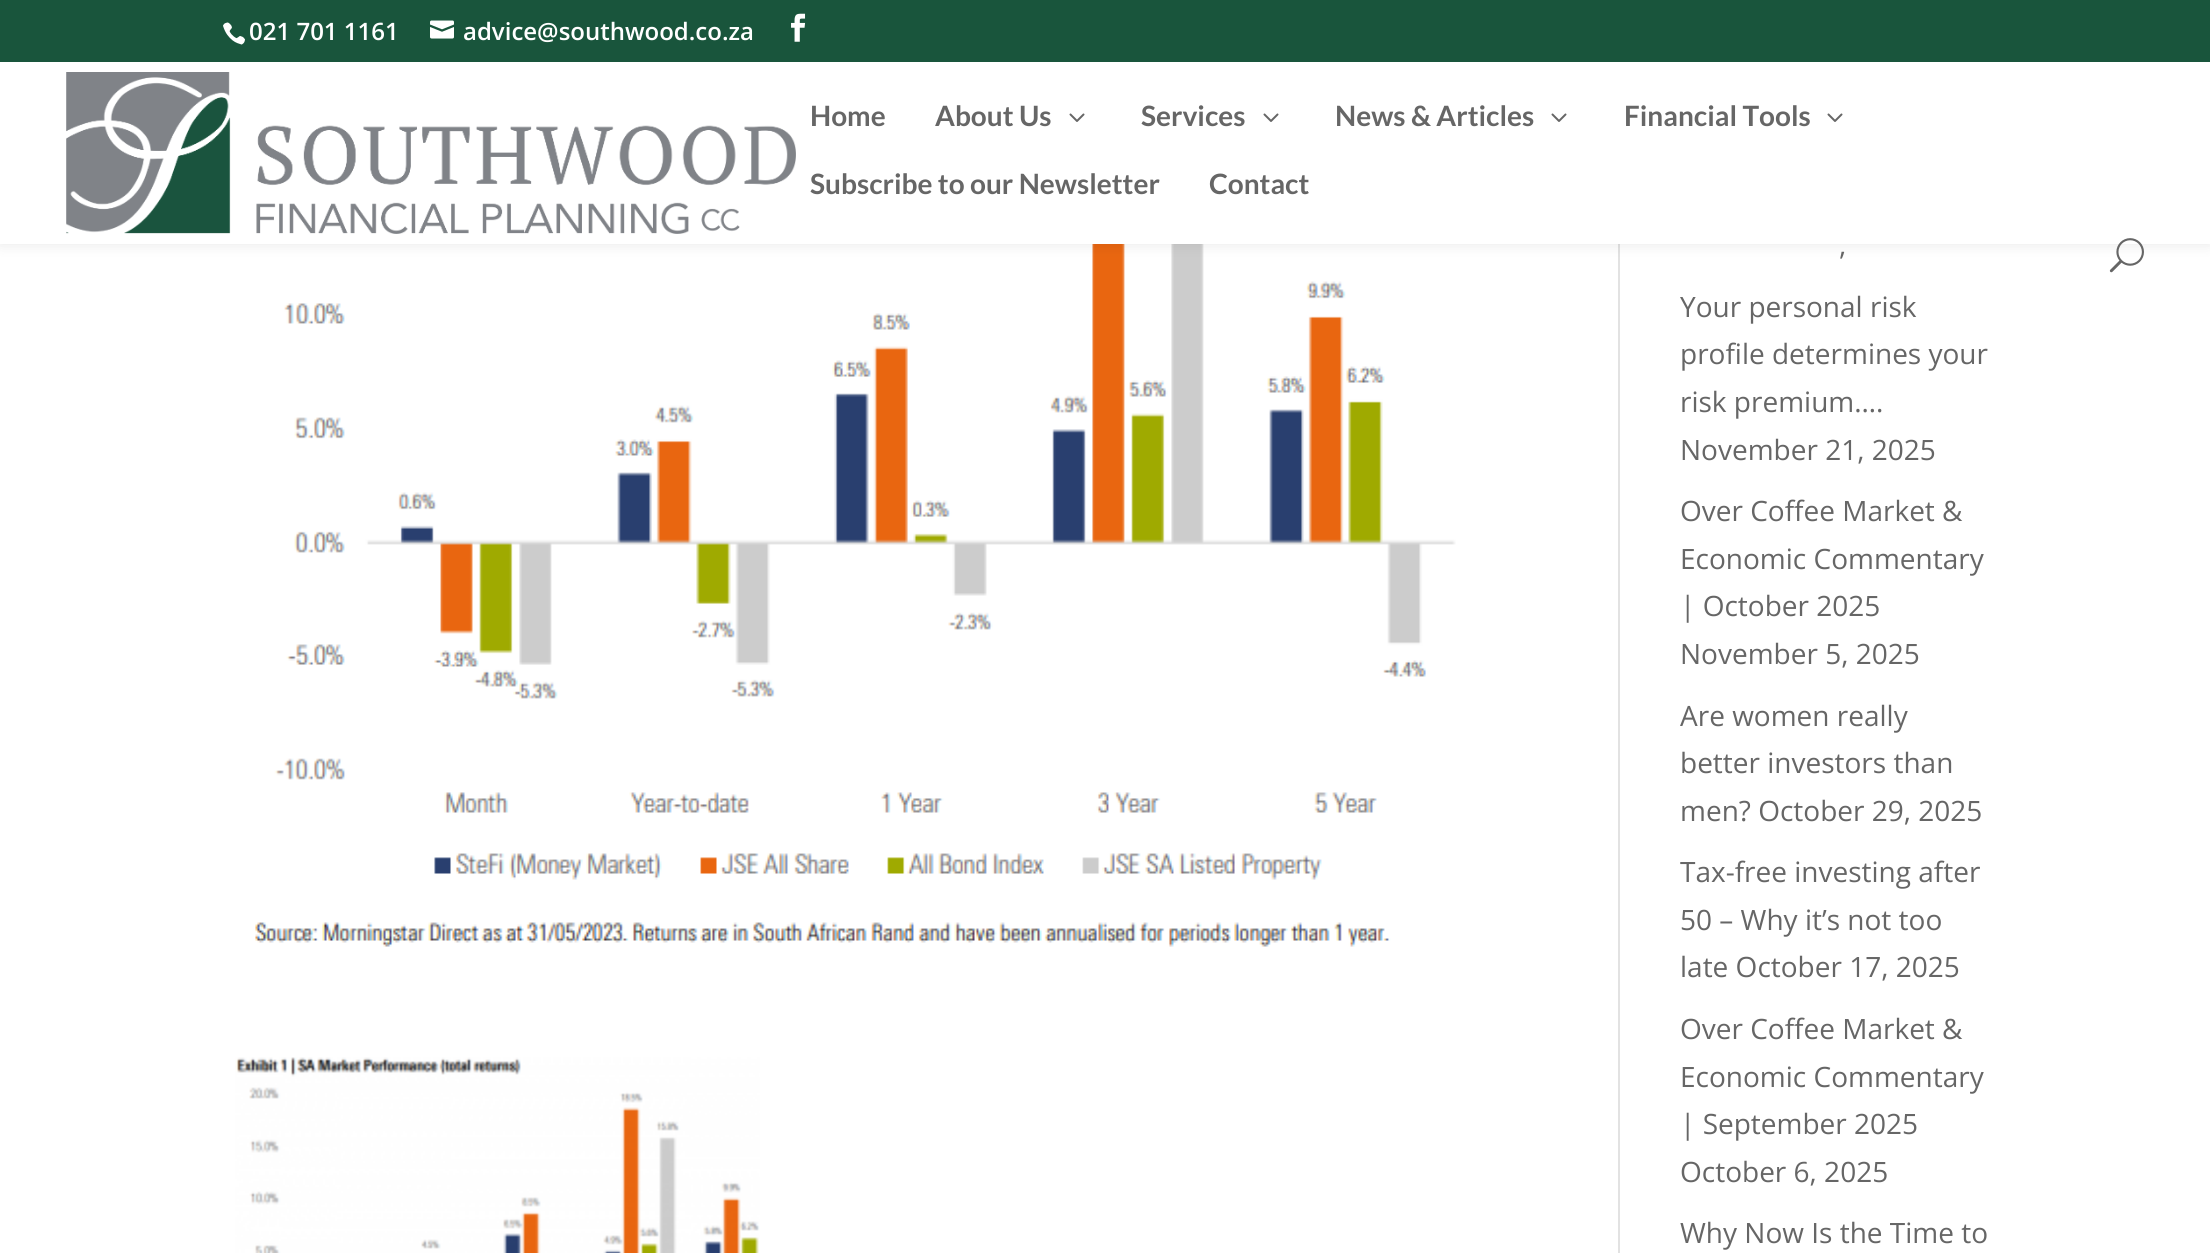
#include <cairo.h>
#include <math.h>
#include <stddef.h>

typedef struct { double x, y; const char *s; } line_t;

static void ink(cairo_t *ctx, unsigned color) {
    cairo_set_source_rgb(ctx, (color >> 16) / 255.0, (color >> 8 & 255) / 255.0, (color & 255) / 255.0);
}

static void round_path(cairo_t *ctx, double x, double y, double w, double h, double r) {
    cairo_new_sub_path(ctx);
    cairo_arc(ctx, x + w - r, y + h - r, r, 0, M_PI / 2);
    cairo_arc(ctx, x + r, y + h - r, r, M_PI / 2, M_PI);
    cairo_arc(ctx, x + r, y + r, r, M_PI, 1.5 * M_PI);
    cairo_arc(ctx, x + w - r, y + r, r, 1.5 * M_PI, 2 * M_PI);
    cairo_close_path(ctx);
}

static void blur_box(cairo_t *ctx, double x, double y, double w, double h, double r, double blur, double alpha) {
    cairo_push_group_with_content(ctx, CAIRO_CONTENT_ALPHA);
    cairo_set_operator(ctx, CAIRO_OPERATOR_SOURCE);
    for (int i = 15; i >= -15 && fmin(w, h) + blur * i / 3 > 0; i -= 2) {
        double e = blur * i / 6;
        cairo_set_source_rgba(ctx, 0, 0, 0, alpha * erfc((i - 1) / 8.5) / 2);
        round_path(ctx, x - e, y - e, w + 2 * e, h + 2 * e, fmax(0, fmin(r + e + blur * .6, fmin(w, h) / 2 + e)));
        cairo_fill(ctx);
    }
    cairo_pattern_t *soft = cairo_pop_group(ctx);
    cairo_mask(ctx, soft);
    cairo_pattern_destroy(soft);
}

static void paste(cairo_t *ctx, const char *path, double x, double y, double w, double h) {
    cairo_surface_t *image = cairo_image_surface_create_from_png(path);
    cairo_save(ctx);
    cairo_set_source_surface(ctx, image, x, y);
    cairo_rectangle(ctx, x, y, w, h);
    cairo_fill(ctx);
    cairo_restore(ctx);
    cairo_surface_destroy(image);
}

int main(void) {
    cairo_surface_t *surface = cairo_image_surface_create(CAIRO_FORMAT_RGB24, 2210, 1253);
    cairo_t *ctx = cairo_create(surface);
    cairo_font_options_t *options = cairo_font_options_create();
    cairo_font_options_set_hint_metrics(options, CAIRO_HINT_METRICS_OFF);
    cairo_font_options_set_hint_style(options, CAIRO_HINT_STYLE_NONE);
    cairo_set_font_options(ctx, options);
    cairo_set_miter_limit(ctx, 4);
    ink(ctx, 0xFFFFFF);
    cairo_paint(ctx);
    ink(ctx, 0xE2E2E2);
    cairo_rectangle(ctx, 1618, 244, 2, 1009);
    cairo_fill(ctx);
    paste(ctx, "media/7.png", 255, 244, 1201, 703);
    ink(ctx, 0x000000);
    blur_box(ctx, 0, 62, 2210, 182, 0, 7, 0.1);
    ink(ctx, 0x19553C);
    cairo_rectangle(ctx, 0, 0, 2210, 62);
    cairo_fill(ctx);
    paste(ctx, "media/1.png", 223, 22, 22, 23);
    cairo_select_font_face(ctx, "Open Sans SemiBold", CAIRO_FONT_SLANT_NORMAL, CAIRO_FONT_WEIGHT_NORMAL);
    cairo_set_font_size(ctx, 24);
    ink(ctx, 0xFFFFFF);
    cairo_move_to(ctx, 249, 40);
    cairo_show_text(ctx, "021 701 1161");
    paste(ctx, "media/2.png", 430, 20, 24, 19);
    cairo_move_to(ctx, 463, 40);
    cairo_show_text(ctx, "advice@southwood.co.za");
    paste(ctx, "media/3.png", 791, 13, 15, 29);
    cairo_rectangle(ctx, 0, 62, 2210, 182);
    cairo_fill(ctx);
    paste(ctx, "media/4.png", 66, 72, 730, 162);
    cairo_select_font_face(ctx, "Lato", CAIRO_FONT_SLANT_NORMAL, CAIRO_FONT_WEIGHT_BOLD);
    cairo_set_font_size(ctx, 28);
    ink(ctx, 0x666666);
    cairo_move_to(ctx, 810, 126);
    cairo_show_text(ctx, "Home");
    cairo_move_to(ctx, 935, 126);
    cairo_show_text(ctx, "About Us");
    paste(ctx, "media/5.png", 1069, 113, 16, 9);
    cairo_move_to(ctx, 1141, 126);
    cairo_show_text(ctx, "Services");
    paste(ctx, "media/5.png", 1263, 113, 16, 9);
    cairo_move_to(ctx, 1335, 126);
    cairo_show_text(ctx, "News & Articles");
    paste(ctx, "media/5.png", 1551, 113, 16, 9);
    cairo_move_to(ctx, 1624, 126);
    cairo_show_text(ctx, "Financial Tools");
    paste(ctx, "media/5.png", 1827, 113, 16, 9);
    cairo_move_to(ctx, 810, 194);
    cairo_show_text(ctx, "Subscribe to our Newsletter");
    cairo_move_to(ctx, 1209, 194);
    cairo_show_text(ctx, "Contact");
    paste(ctx, "media/6.png", 2109, 238, 35, 35);
    paste(ctx, "media/8.png", 235, 1057, 525, 196);
    cairo_select_font_face(ctx, "Open Sans", CAIRO_FONT_SLANT_NORMAL, CAIRO_FONT_WEIGHT_NORMAL);
    {
        static const line_t items[] = {
            {1839, 255, ","},
            {1680, 317, "Your personal risk"},
            {1680, 364, "profile determines your"},
            {1680, 412, "risk premium…."},
            {1680, 460, "November 21, 2025"},
            {1680, 521, "Over Coffee Market &"},
            {1680, 569, "Economic Commentary"},
            {1680, 616, "| October 2025"},
            {1680, 664, "November 5, 2025"},
            {1680, 726, "Are women really"},
            {1680, 773, "better investors than"},
            {1680, 821, "men? October 29, 2025"},
            {1680, 882, "Tax-free investing after"},
            {1680, 930, "50 – Why it’s not too"},
            {1680, 977, "late October 17, 2025"},
            {1680, 1039, "Over Coffee Market &"},
            {1680, 1087, "Economic Commentary"},
            {1680, 1134, "| September 2025"},
            {1680, 1182, "October 6, 2025"},
            {1680, 1243, "Why Now Is the Time to"},
        };
        for (size_t i = 0; i < sizeof items / sizeof *items; i++) {
            cairo_move_to(ctx, items[i].x, items[i].y);
            cairo_show_text(ctx, items[i].s);
        }
    }
    cairo_surface_write_to_png(surface, "image.png");
    cairo_font_options_destroy(options);
    cairo_destroy(ctx);
    cairo_surface_destroy(surface);
    return 0;
}
